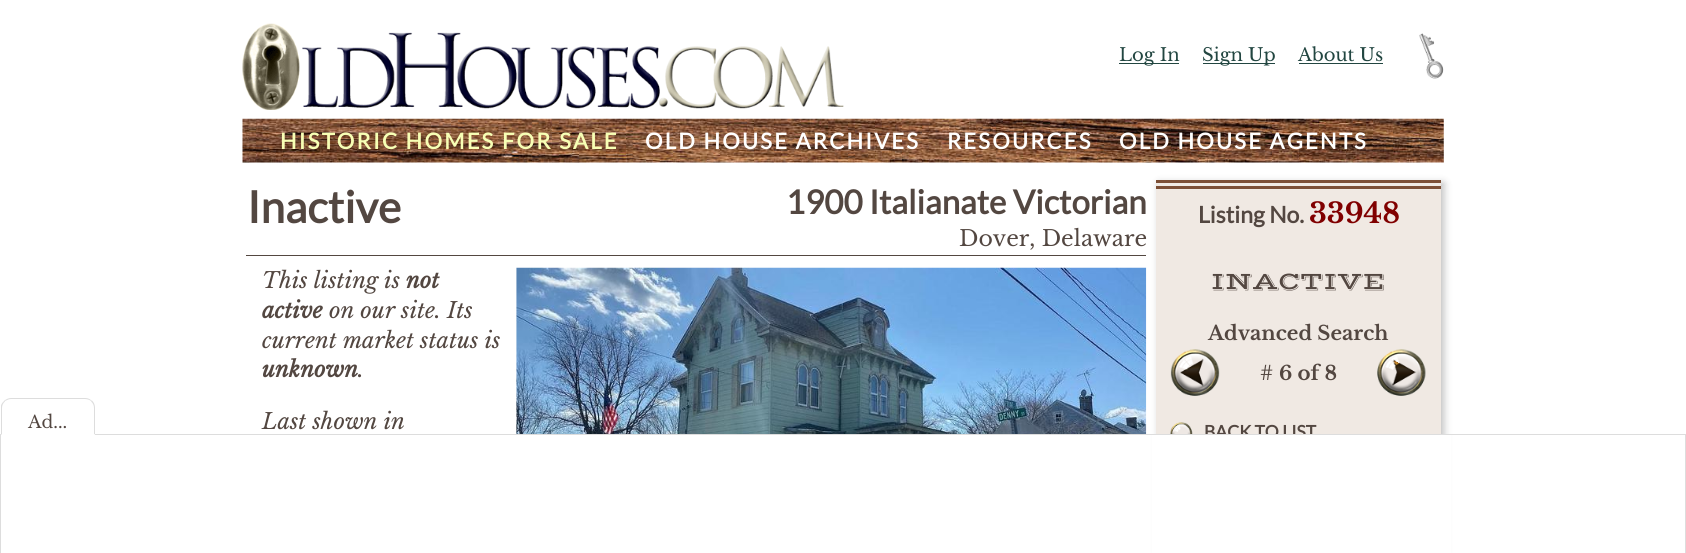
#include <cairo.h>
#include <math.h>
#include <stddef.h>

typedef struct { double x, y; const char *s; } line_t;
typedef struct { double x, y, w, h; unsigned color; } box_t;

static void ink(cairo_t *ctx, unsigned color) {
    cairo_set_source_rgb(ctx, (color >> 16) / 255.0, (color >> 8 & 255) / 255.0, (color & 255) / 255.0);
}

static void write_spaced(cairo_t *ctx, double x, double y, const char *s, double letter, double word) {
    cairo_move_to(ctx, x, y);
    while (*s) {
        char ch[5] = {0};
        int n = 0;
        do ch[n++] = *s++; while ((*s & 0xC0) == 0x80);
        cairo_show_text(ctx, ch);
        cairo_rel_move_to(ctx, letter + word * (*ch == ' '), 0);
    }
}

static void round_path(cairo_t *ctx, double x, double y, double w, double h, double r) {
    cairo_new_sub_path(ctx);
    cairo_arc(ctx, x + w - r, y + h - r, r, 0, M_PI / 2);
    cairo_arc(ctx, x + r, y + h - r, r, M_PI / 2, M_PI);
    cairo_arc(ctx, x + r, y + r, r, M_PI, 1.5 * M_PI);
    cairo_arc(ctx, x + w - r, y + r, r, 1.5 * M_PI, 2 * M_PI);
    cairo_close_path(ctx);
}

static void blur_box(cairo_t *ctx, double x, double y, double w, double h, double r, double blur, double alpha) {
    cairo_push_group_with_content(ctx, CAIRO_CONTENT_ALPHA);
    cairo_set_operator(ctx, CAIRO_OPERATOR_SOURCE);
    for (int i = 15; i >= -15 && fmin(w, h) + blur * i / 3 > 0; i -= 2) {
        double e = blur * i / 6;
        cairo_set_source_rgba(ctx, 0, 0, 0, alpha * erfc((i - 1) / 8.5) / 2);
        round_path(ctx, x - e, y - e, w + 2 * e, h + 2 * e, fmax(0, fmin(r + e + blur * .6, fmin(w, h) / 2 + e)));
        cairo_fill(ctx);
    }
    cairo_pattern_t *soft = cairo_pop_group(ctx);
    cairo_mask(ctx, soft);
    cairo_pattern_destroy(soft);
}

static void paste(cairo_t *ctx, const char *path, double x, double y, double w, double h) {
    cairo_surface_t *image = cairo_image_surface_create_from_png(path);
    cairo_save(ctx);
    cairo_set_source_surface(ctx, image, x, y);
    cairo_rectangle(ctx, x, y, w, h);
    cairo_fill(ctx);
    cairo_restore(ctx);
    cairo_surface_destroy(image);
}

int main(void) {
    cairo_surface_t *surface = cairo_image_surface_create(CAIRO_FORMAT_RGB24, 1686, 553);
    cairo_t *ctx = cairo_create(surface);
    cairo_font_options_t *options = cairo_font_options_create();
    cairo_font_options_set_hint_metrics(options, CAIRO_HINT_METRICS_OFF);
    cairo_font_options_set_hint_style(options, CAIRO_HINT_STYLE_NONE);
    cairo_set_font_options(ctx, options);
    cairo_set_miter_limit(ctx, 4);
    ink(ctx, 0xFFFFFF);
    cairo_paint(ctx);
    cairo_save(ctx);
    cairo_set_fill_rule(ctx, CAIRO_FILL_RULE_EVEN_ODD);
    cairo_new_path(ctx);
    cairo_move_to(ctx, 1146, 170);
    cairo_line_to(ctx, 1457, 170);
    cairo_line_to(ctx, 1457, 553);
    cairo_line_to(ctx, 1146, 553);
    cairo_close_path(ctx);
    cairo_move_to(ctx, 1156, 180);
    cairo_line_to(ctx, 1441, 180);
    cairo_line_to(ctx, 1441, 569);
    cairo_line_to(ctx, 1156, 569);
    cairo_close_path(ctx);
    cairo_clip(ctx);
    ink(ctx, 0x000000);
    blur_box(ctx, 1159, 183, 285, 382, 0, 4, 0.25);
    cairo_restore(ctx);
    cairo_set_source_rgba(ctx, 0.604, 0.439, 0.267, 0.15);
    cairo_rectangle(ctx, 1156, 183, 285, 251);
    cairo_fill(ctx);
    cairo_select_font_face(ctx, "Lato", CAIRO_FONT_SLANT_NORMAL, CAIRO_FONT_WEIGHT_BOLD);
    cairo_set_font_size(ctx, 17.5);
    ink(ctx, 0x534741);
    cairo_move_to(ctx, 1204, 438);
    cairo_show_text(ctx, "BACK TO LIST");
    ink(ctx, 0xFFFFFF);
    cairo_rectangle(ctx, 1152, 435, 299, 118);
    cairo_fill(ctx);
    cairo_rectangle(ctx, 0.5, 434.5, 1685, 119);
    ink(ctx, 0xDDDDDD);
    cairo_set_line_width(ctx, 1);
    cairo_stroke(ctx);
    ink(ctx, 0xFFFFFF);
    cairo_new_path(ctx);
    cairo_move_to(ctx, 11, 398);
    cairo_line_to(ctx, 85, 398);
    cairo_curve_to(ctx, 90.5, 398, 95, 402.5, 95, 408);
    cairo_line_to(ctx, 95, 435);
    cairo_line_to(ctx, 1, 435);
    cairo_line_to(ctx, 1, 408);
    cairo_curve_to(ctx, 1, 402.5, 5.5, 398, 11, 398);
    cairo_close_path(ctx);
    cairo_fill(ctx);
    ink(ctx, 0xDDDDDD);
    cairo_new_path(ctx);
    cairo_move_to(ctx, 11, 398);
    cairo_curve_to(ctx, 9, 398, 6, 399, 4, 401);
    cairo_line_to(ctx, 5, 401);
    cairo_curve_to(ctx, 7, 400, 9, 399, 11, 399);
    cairo_line_to(ctx, 85, 399);
    cairo_curve_to(ctx, 87, 399, 90, 400, 91, 401);
    cairo_line_to(ctx, 92, 401);
    cairo_curve_to(ctx, 90, 399, 88, 398, 85, 398);
    cairo_close_path(ctx);
    cairo_fill(ctx);
    cairo_new_path(ctx);
    cairo_move_to(ctx, 92, 400.5);
    cairo_curve_to(ctx, 94, 402.5, 95, 405, 95, 408);
    cairo_line_to(ctx, 95, 435);
    cairo_line_to(ctx, 94, 434);
    cairo_line_to(ctx, 94, 408);
    cairo_curve_to(ctx, 94, 405.5, 93, 403, 91, 401.5);
    cairo_close_path(ctx);
    cairo_fill(ctx);
    ink(ctx, 0xFFFFFF);
    cairo_new_path(ctx);
    cairo_move_to(ctx, 95, 435);
    cairo_line_to(ctx, 94, 434);
    cairo_line_to(ctx, 2, 434);
    cairo_line_to(ctx, 1, 435);
    cairo_close_path(ctx);
    cairo_fill(ctx);
    ink(ctx, 0xDDDDDD);
    cairo_new_path(ctx);
    cairo_move_to(ctx, 1, 435);
    cairo_line_to(ctx, 2, 434);
    cairo_line_to(ctx, 2, 408);
    cairo_curve_to(ctx, 2, 405.5, 3, 403, 5, 401.5);
    cairo_line_to(ctx, 4.5, 400.5);
    cairo_curve_to(ctx, 3, 402, 1.5, 403.5, 1, 405.5);
    cairo_close_path(ctx);
    cairo_fill(ctx);
    cairo_select_font_face(ctx, "Libre Baskerville", CAIRO_FONT_SLANT_NORMAL, CAIRO_FONT_WEIGHT_NORMAL);
    ink(ctx, 0x534741);
    cairo_move_to(ctx, 28, 428);
    cairo_show_text(ctx, "Ad...");
    paste(ctx, "media/1.png", 1419, 33, 25, 46);
    ink(ctx, 0x224641);
    cairo_rectangle(ctx, 1119, 63, 60, 1);
    cairo_fill(ctx);
    cairo_set_font_size(ctx, 18);
    cairo_move_to(ctx, 1119, 61);
    cairo_show_text(ctx, "Log In");
    cairo_rectangle(ctx, 1203, 63, 72, 1);
    cairo_fill(ctx);
    cairo_move_to(ctx, 1202, 61);
    cairo_show_text(ctx, "Sign Up");
    cairo_move_to(ctx, 1298, 61);
    cairo_show_text(ctx, "About Us");
    {
        static const box_t items[] = {
            {1299, 63, 84, 1, 0x224641},
            {1156, 180, 285, 3, 0x7C4E35},
            {1156, 186, 285, 3, 0x7C4E35},
        };
        for (size_t i = 0; i < sizeof items / sizeof *items; i++) {
            ink(ctx, items[i].color);
            cairo_rectangle(ctx, items[i].x, items[i].y, items[i].w, items[i].h);
            cairo_fill(ctx);
        }
    }
    cairo_select_font_face(ctx, "Lato", CAIRO_FONT_SLANT_NORMAL, CAIRO_FONT_WEIGHT_BOLD);
    cairo_set_font_size(ctx, 23);
    ink(ctx, 0x534741);
    cairo_move_to(ctx, 1198, 223);
    cairo_show_text(ctx, "Listing No.");
    cairo_select_font_face(ctx, "Libre Baskerville", CAIRO_FONT_SLANT_NORMAL, CAIRO_FONT_WEIGHT_BOLD);
    cairo_set_font_size(ctx, 28);
    ink(ctx, 0x800000);
    cairo_move_to(ctx, 1309, 223);
    cairo_show_text(ctx, "33948");
    cairo_select_font_face(ctx, "Vast Shadow", CAIRO_FONT_SLANT_NORMAL, CAIRO_FONT_WEIGHT_NORMAL);
    cairo_set_font_size(ctx, 24.75);
    ink(ctx, 0x534741);
    cairo_move_to(ctx, 1211, 289);
    cairo_show_text(ctx, "INACTIVE");
    cairo_select_font_face(ctx, "Libre Baskerville", CAIRO_FONT_SLANT_NORMAL, CAIRO_FONT_WEIGHT_BOLD);
    cairo_set_font_size(ctx, 19.75);
    cairo_move_to(ctx, 1208, 340);
    cairo_show_text(ctx, "Advanced Search");
    paste(ctx, "media/2.png", 1170, 349, 50, 47);
    cairo_select_font_face(ctx, "Libre Baskerville", CAIRO_FONT_SLANT_NORMAL, CAIRO_FONT_WEIGHT_NORMAL);
    cairo_move_to(ctx, 1260, 380);
    cairo_show_text(ctx, "#");
    cairo_select_font_face(ctx, "Libre Baskerville", CAIRO_FONT_SLANT_NORMAL, CAIRO_FONT_WEIGHT_BOLD);
    cairo_move_to(ctx, 1279, 380);
    cairo_show_text(ctx, "6 of 8");
    paste(ctx, "media/3.png", 1377, 349, 49, 47);
    paste(ctx, "media/4.png", 1170, 422, 23, 12);
    paste(ctx, "media/5.png", 242, 23, 602, 87);
    paste(ctx, "media/6.png", 242, 118, 1202, 45);
    cairo_select_font_face(ctx, "Lato", CAIRO_FONT_SLANT_NORMAL, CAIRO_FONT_WEIGHT_BOLD);
    cairo_set_font_size(ctx, 22);
    ink(ctx, 0xF7FFB5);
    write_spaced(ctx, 280, 149, "HISTORIC HOMES FOR SALE", 2.2, 0);
    ink(ctx, 0xFFFFFF);
    {
        static const line_t items[] = {
            {645, 149, "OLD HOUSE ARCHIVES"},
            {947, 149, "RESOURCES"},
            {1119, 149, "OLD HOUSE AGENTS"},
        };
        for (size_t i = 0; i < sizeof items / sizeof *items; i++) {
            write_spaced(ctx, items[i].x, items[i].y, items[i].s, 2.2, 0);
        }
    }
    cairo_set_font_size(ctx, 44);
    ink(ctx, 0x534741);
    cairo_move_to(ctx, 247, 223);
    cairo_show_text(ctx, "Inactive");
    cairo_set_font_size(ctx, 33);
    cairo_move_to(ctx, 786, 214);
    cairo_show_text(ctx, "1900 Italianate Victorian");
    cairo_select_font_face(ctx, "Libre Baskerville", CAIRO_FONT_SLANT_NORMAL, CAIRO_FONT_WEIGHT_NORMAL);
    cairo_set_font_size(ctx, 22);
    cairo_move_to(ctx, 959, 246);
    cairo_show_text(ctx, "Dover, Delaware");
    cairo_rectangle(ctx, 246, 255, 900, 1);
    cairo_fill(ctx);
    cairo_select_font_face(ctx, "Libre Baskerville", CAIRO_FONT_SLANT_ITALIC, CAIRO_FONT_WEIGHT_NORMAL);
    cairo_move_to(ctx, 262, 288);
    cairo_show_text(ctx, "This listing is");
    cairo_select_font_face(ctx, "Libre Baskerville", CAIRO_FONT_SLANT_ITALIC, CAIRO_FONT_WEIGHT_BOLD);
    cairo_move_to(ctx, 406, 288);
    cairo_show_text(ctx, "not");
    cairo_move_to(ctx, 262, 318);
    cairo_show_text(ctx, "active");
    cairo_select_font_face(ctx, "Libre Baskerville", CAIRO_FONT_SLANT_ITALIC, CAIRO_FONT_WEIGHT_NORMAL);
    cairo_move_to(ctx, 329, 318);
    cairo_show_text(ctx, "on our site. Its");
    cairo_move_to(ctx, 262, 348);
    cairo_show_text(ctx, "current market status is");
    cairo_select_font_face(ctx, "Libre Baskerville", CAIRO_FONT_SLANT_ITALIC, CAIRO_FONT_WEIGHT_BOLD);
    cairo_move_to(ctx, 262, 377);
    cairo_show_text(ctx, "unknown");
    cairo_select_font_face(ctx, "Libre Baskerville", CAIRO_FONT_SLANT_ITALIC, CAIRO_FONT_WEIGHT_NORMAL);
    cairo_move_to(ctx, 358, 377);
    cairo_show_text(ctx, ".");
    cairo_move_to(ctx, 262, 429);
    cairo_show_text(ctx, "Last shown in");
    paste(ctx, "media/7.png", 516, 267, 631, 167);
    cairo_surface_write_to_png(surface, "image.png");
    cairo_font_options_destroy(options);
    cairo_destroy(ctx);
    cairo_surface_destroy(surface);
    return 0;
}
